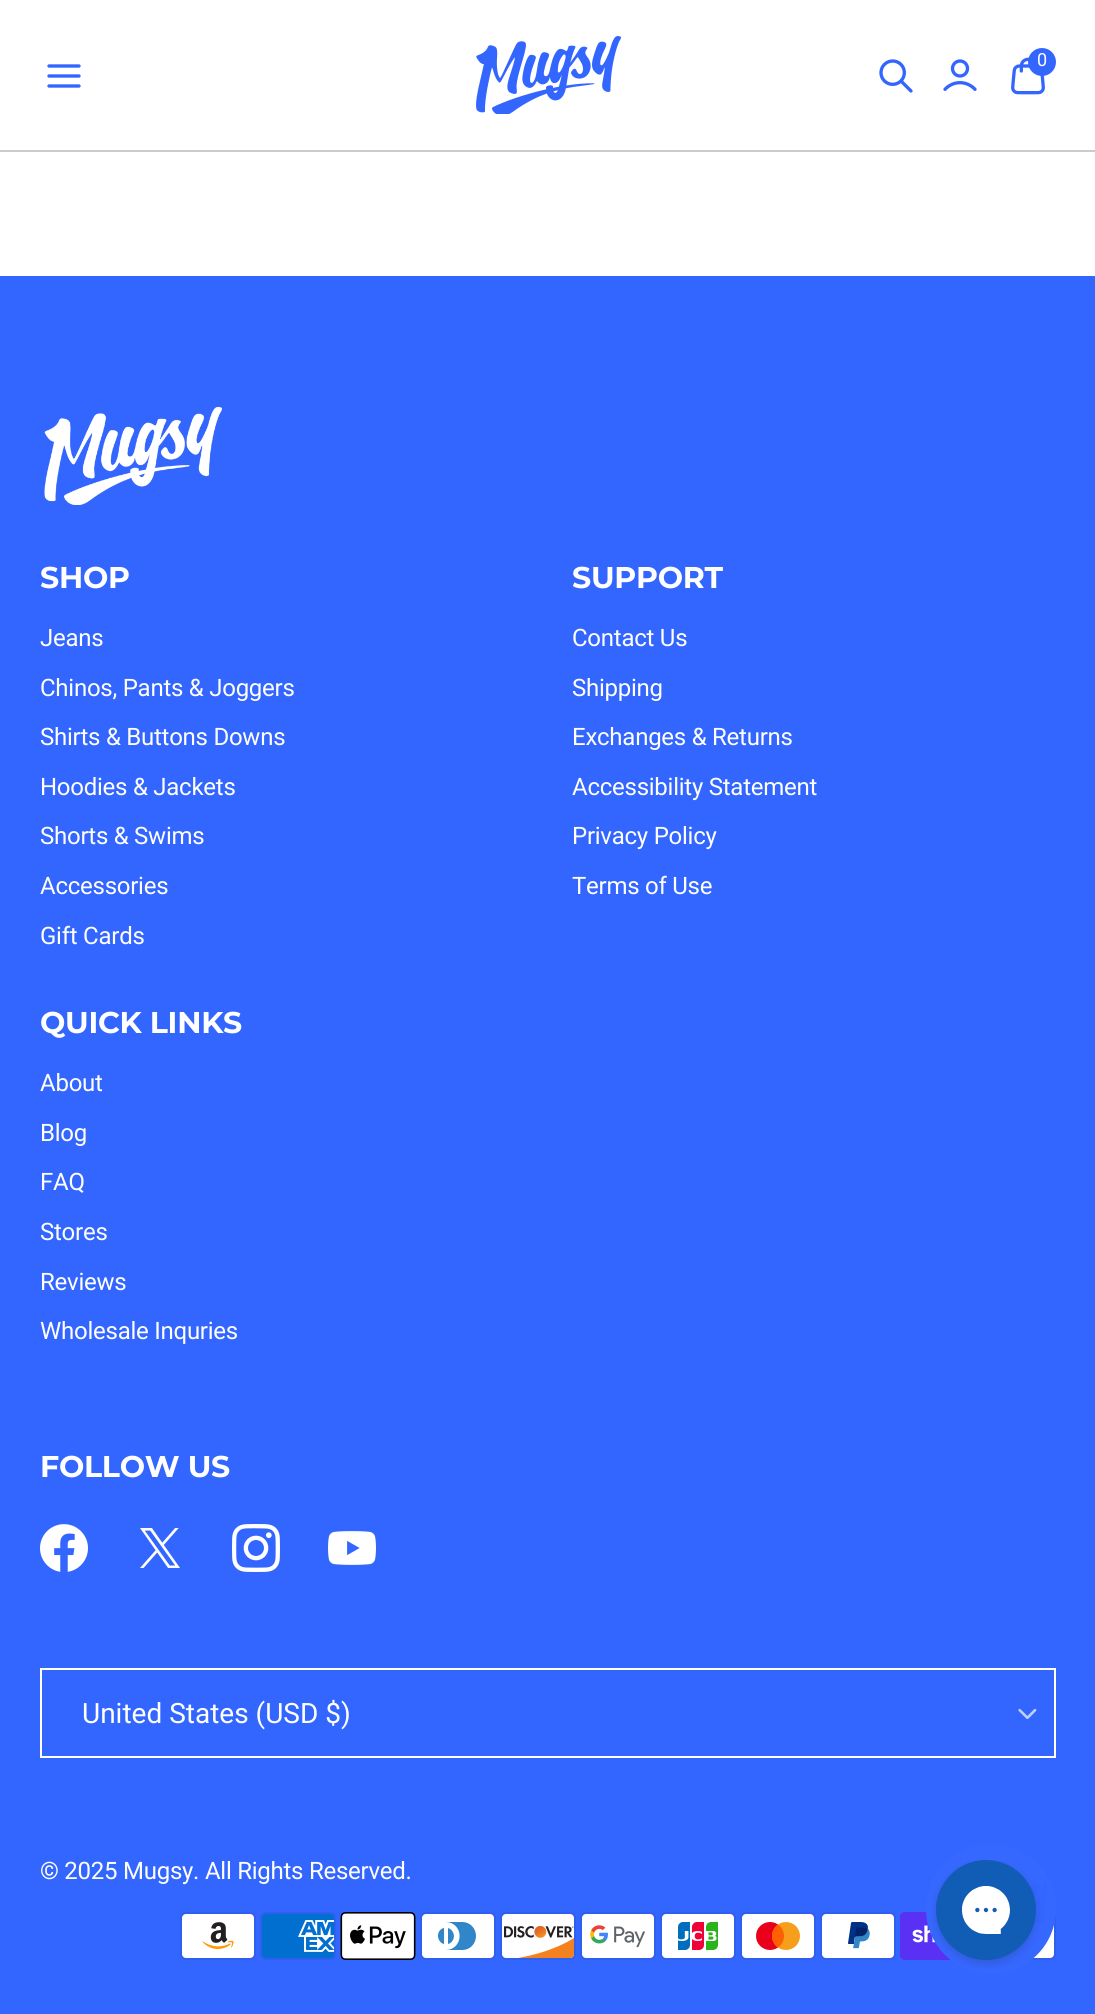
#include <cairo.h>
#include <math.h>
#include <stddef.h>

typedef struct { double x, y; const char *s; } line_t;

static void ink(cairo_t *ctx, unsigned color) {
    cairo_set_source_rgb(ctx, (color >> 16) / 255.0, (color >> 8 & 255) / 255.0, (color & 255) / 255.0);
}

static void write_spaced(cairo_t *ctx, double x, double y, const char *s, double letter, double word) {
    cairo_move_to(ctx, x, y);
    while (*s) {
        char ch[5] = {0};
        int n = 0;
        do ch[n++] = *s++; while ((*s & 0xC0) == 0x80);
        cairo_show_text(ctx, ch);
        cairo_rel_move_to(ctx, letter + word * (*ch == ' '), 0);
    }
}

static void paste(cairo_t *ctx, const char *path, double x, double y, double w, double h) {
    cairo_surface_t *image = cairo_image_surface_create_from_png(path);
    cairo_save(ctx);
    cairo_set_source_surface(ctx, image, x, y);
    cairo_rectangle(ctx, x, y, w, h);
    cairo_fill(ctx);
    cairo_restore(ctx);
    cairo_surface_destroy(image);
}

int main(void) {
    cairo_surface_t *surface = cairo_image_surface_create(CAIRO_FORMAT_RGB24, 1095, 2014);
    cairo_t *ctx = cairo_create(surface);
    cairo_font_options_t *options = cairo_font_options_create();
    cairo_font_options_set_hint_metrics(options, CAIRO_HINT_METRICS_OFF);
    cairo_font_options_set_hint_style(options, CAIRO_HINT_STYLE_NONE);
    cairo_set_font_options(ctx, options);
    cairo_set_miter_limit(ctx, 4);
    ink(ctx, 0xFFFFFF);
    cairo_paint(ctx);
    ink(ctx, 0xCCCCCC);
    cairo_rectangle(ctx, 0, 150, 1095, 2);
    cairo_fill(ctx);
    paste(ctx, "media/1.png", 476, 36, 145, 78);
    paste(ctx, "media/2.png", 879, 59, 34, 34);
    paste(ctx, "media/3.png", 943, 59, 34, 32);
    paste(ctx, "media/4.png", 1011, 57, 34, 38);
    ink(ctx, 0x3366FF);
    cairo_arc(ctx, 1042, 62, 14, 0, 2 * M_PI);
    cairo_fill(ctx);
    cairo_select_font_face(ctx, "Roboto", CAIRO_FONT_SLANT_NORMAL, CAIRO_FONT_WEIGHT_NORMAL);
    cairo_set_font_size(ctx, 18);
    ink(ctx, 0xFFFFFF);
    cairo_move_to(ctx, 1037, 66);
    cairo_show_text(ctx, "0");
    paste(ctx, "media/5.png", 47, 64, 34, 24);
    ink(ctx, 0x3366FF);
    cairo_rectangle(ctx, 0, 276, 1095, 1738);
    cairo_fill(ctx);
    paste(ctx, "media/6.png", 44, 407, 178, 98);
    cairo_select_font_face(ctx, "Montserrat", CAIRO_FONT_SLANT_NORMAL, CAIRO_FONT_WEIGHT_BOLD);
    cairo_set_font_size(ctx, 30);
    ink(ctx, 0xFFFFFF);
    write_spaced(ctx, 40, 588, "SHOP", -0.25, 0);
    cairo_select_font_face(ctx, "Roboto", CAIRO_FONT_SLANT_NORMAL, CAIRO_FONT_WEIGHT_NORMAL);
    cairo_set_font_size(ctx, 24);
    {
        static const line_t items[] = {
            {40, 646, "Jeans"},
            {40, 696, "Chinos, Pants & Joggers"},
            {40, 745, "Shirts & Buttons Downs"},
            {40, 795, "Hoodies & Jackets"},
            {40, 844, "Shorts & Swims"},
            {40, 894, "Accessories"},
            {40, 944, "Gift Cards"},
        };
        for (size_t i = 0; i < sizeof items / sizeof *items; i++) {
            write_spaced(ctx, items[i].x, items[i].y, items[i].s, -0.25, 0);
        }
    }
    cairo_select_font_face(ctx, "Montserrat", CAIRO_FONT_SLANT_NORMAL, CAIRO_FONT_WEIGHT_BOLD);
    cairo_set_font_size(ctx, 30);
    write_spaced(ctx, 572, 588, "SUPPORT", -0.25, 0);
    cairo_select_font_face(ctx, "Roboto", CAIRO_FONT_SLANT_NORMAL, CAIRO_FONT_WEIGHT_NORMAL);
    cairo_set_font_size(ctx, 24);
    {
        static const line_t items[] = {
            {572, 646, "Contact Us"},
            {572, 696, "Shipping"},
            {572, 745, "Exchanges & Returns"},
            {572, 795, "Accessibility Statement"},
            {572, 844, "Privacy Policy"},
            {572, 894, "Terms of Use"},
        };
        for (size_t i = 0; i < sizeof items / sizeof *items; i++) {
            write_spaced(ctx, items[i].x, items[i].y, items[i].s, -0.25, 0);
        }
    }
    cairo_select_font_face(ctx, "Montserrat", CAIRO_FONT_SLANT_NORMAL, CAIRO_FONT_WEIGHT_BOLD);
    cairo_set_font_size(ctx, 30);
    write_spaced(ctx, 40, 1033, "QUICK LINKS", -0.25, 0);
    cairo_select_font_face(ctx, "Roboto", CAIRO_FONT_SLANT_NORMAL, CAIRO_FONT_WEIGHT_NORMAL);
    cairo_set_font_size(ctx, 24);
    {
        static const line_t items[] = {
            {40, 1091, "About"},
            {40, 1141, "Blog"},
            {40, 1190, "FAQ"},
            {40, 1240, "Stores"},
            {40, 1290, "Reviews"},
            {40, 1339, "Wholesale Inquries"},
        };
        for (size_t i = 0; i < sizeof items / sizeof *items; i++) {
            write_spaced(ctx, items[i].x, items[i].y, items[i].s, -0.25, 0);
        }
    }
    cairo_select_font_face(ctx, "Montserrat", CAIRO_FONT_SLANT_NORMAL, CAIRO_FONT_WEIGHT_BOLD);
    cairo_set_font_size(ctx, 30);
    write_spaced(ctx, 40, 1477, "FOLLOW US", -0.25, 0);
    paste(ctx, "media/7.png", 40, 1524, 48, 48);
    paste(ctx, "media/8.png", 140, 1528, 40, 40);
    paste(ctx, "media/9.png", 232, 1524, 48, 48);
    paste(ctx, "media/10.png", 328, 1531, 48, 34);
    cairo_rectangle(ctx, 41, 1669, 1014, 88);
    cairo_stroke(ctx);
    cairo_select_font_face(ctx, "Roboto", CAIRO_FONT_SLANT_NORMAL, CAIRO_FONT_WEIGHT_NORMAL);
    cairo_set_font_size(ctx, 28);
    cairo_move_to(ctx, 82, 1723);
    cairo_show_text(ctx, "United States (USD $)");
    paste(ctx, "media/11.png", 1018, 1708, 19, 12);
    cairo_set_font_size(ctx, 24);
    write_spaced(ctx, 40, 1879, "© 2025 Mugsy. All Rights Reserved.", -0.25, 0);
    paste(ctx, "media/12.png", 180, 1912, 76, 48);
    paste(ctx, "media/13.png", 260, 1912, 76, 48);
    paste(ctx, "media/14.png", 340, 1912, 76, 48);
    paste(ctx, "media/15.png", 420, 1912, 76, 48);
    paste(ctx, "media/16.png", 500, 1912, 76, 48);
    paste(ctx, "media/17.png", 580, 1912, 76, 48);
    paste(ctx, "media/18.png", 660, 1912, 76, 48);
    paste(ctx, "media/19.png", 740, 1912, 76, 48);
    paste(ctx, "media/20.png", 820, 1912, 76, 48);
    paste(ctx, "media/21.png", 900, 1912, 51, 48);
    paste(ctx, "media/22.png", 1031, 1915, 25, 45);
    ink(ctx, 0x3668FF);
    cairo_arc(ctx, 991, 1909, 65, 0, 2 * M_PI);
    cairo_fill(ctx);
    paste(ctx, "media/23.png", 940, 1882, 107, 55);
    paste(ctx, "media/24.png", 932, 1860, 108, 108);
    cairo_surface_write_to_png(surface, "image.png");
    cairo_font_options_destroy(options);
    cairo_destroy(ctx);
    cairo_surface_destroy(surface);
    return 0;
}
